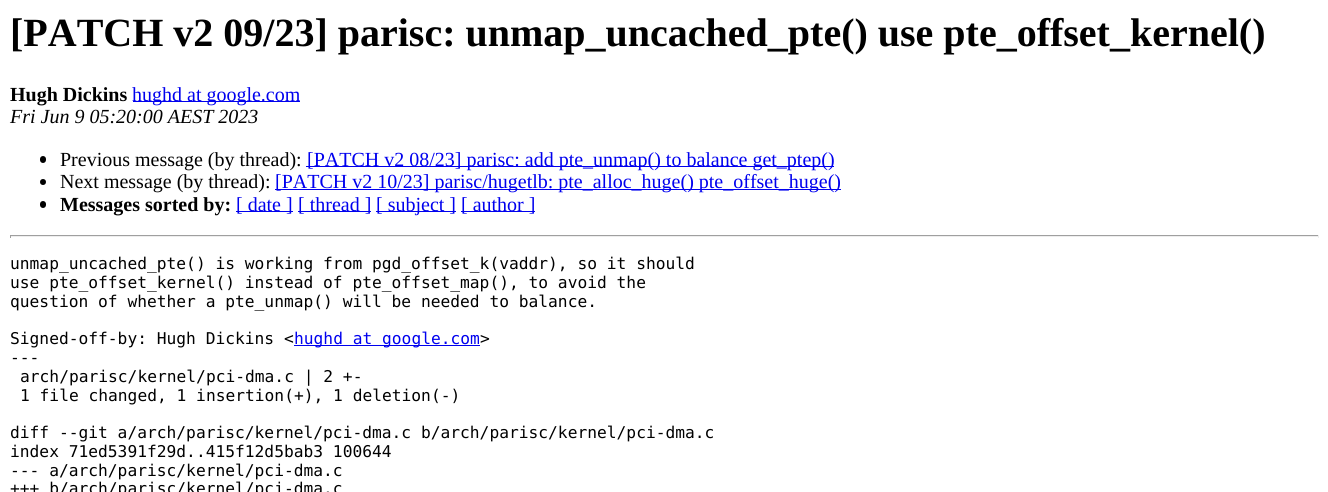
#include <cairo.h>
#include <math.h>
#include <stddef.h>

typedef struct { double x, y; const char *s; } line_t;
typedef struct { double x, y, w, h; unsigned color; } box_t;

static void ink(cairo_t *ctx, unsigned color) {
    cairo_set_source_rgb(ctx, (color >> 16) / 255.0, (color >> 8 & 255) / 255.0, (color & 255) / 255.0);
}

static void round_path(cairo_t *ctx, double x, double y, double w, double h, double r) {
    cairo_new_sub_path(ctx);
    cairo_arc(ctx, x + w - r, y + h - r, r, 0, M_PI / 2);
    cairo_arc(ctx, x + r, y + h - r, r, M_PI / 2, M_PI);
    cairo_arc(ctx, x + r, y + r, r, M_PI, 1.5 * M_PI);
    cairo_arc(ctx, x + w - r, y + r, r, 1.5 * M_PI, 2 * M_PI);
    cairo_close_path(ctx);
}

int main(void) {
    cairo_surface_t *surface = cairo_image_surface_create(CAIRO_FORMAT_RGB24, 1328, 492);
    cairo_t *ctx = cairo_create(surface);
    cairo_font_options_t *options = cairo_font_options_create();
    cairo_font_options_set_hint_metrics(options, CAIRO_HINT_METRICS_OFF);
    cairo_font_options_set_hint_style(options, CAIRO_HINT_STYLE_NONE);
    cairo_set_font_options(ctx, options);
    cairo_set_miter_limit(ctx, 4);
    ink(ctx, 0xFFFFFF);
    cairo_paint(ctx);
    cairo_select_font_face(ctx, "Liberation Serif", CAIRO_FONT_SLANT_NORMAL, CAIRO_FONT_WEIGHT_BOLD);
    cairo_set_font_size(ctx, 40);
    ink(ctx, 0x000000);
    cairo_move_to(ctx, 10, 46);
    cairo_show_text(ctx, "[PATCH v2 09/23] parisc: unmap_uncached_pte() use pte_offset_kernel()");
    cairo_set_font_size(ctx, 20);
    cairo_move_to(ctx, 10, 101);
    cairo_show_text(ctx, "Hugh Dickins");
    ink(ctx, 0x0000EE);
    cairo_rectangle(ctx, 133, 101, 167, 1);
    cairo_fill(ctx);
    cairo_select_font_face(ctx, "Liberation Serif", CAIRO_FONT_SLANT_NORMAL, CAIRO_FONT_WEIGHT_NORMAL);
    cairo_move_to(ctx, 132, 101);
    cairo_show_text(ctx, "hughd at google.com");
    cairo_select_font_face(ctx, "Liberation Serif", CAIRO_FONT_SLANT_ITALIC, CAIRO_FONT_WEIGHT_NORMAL);
    ink(ctx, 0x000000);
    cairo_move_to(ctx, 10, 123);
    cairo_show_text(ctx, "Fri Jun 9 05:20:00 AEST 2023");
    round_path(ctx, 40, 156, 6, 7, 3);
    cairo_fill(ctx);
    cairo_select_font_face(ctx, "Liberation Serif", CAIRO_FONT_SLANT_NORMAL, CAIRO_FONT_WEIGHT_NORMAL);
    cairo_move_to(ctx, 60, 166);
    cairo_show_text(ctx, "Previous message (by thread):");
    ink(ctx, 0x0000EE);
    cairo_rectangle(ctx, 306, 166, 528, 1);
    cairo_fill(ctx);
    cairo_move_to(ctx, 307, 166);
    cairo_show_text(ctx, "[PATCH v2 08/23] parisc: add pte_unmap() to balance get_ptep()");
    ink(ctx, 0x000000);
    cairo_new_path(ctx);
    cairo_arc(ctx, 43, 182, 3, 0, 2 * M_PI);
    cairo_fill(ctx);
    cairo_move_to(ctx, 60, 188);
    cairo_show_text(ctx, "Next message (by thread):");
    ink(ctx, 0x0000EE);
    cairo_rectangle(ctx, 275, 189, 566, 1);
    cairo_fill(ctx);
    cairo_move_to(ctx, 275, 188);
    cairo_show_text(ctx, "[PATCH v2 10/23] parisc/hugetlb: pte_alloc_huge() pte_offset_huge()");
    ink(ctx, 0x000000);
    round_path(ctx, 40, 201, 6, 7, 3);
    cairo_fill(ctx);
    cairo_select_font_face(ctx, "Liberation Serif", CAIRO_FONT_SLANT_NORMAL, CAIRO_FONT_WEIGHT_BOLD);
    cairo_move_to(ctx, 60, 211);
    cairo_show_text(ctx, "Messages sorted by:");
    ink(ctx, 0x0000EE);
    cairo_rectangle(ctx, 236, 211, 57, 1);
    cairo_fill(ctx);
    cairo_select_font_face(ctx, "Liberation Serif", CAIRO_FONT_SLANT_NORMAL, CAIRO_FONT_WEIGHT_NORMAL);
    cairo_move_to(ctx, 236, 211);
    cairo_show_text(ctx, "[ date ]");
    cairo_rectangle(ctx, 298, 211, 73, 1);
    cairo_fill(ctx);
    cairo_move_to(ctx, 298, 211);
    cairo_show_text(ctx, "[ thread ]");
    cairo_rectangle(ctx, 376, 211, 80, 1);
    cairo_fill(ctx);
    cairo_move_to(ctx, 376, 211);
    cairo_show_text(ctx, "[ subject ]");
    cairo_rectangle(ctx, 461, 211, 74, 1);
    cairo_fill(ctx);
    cairo_move_to(ctx, 461, 211);
    cairo_show_text(ctx, "[ author ]");
    {
        static const box_t items[] = {
            {10, 235, 1309, 1, 0x9F9F9F},
            {1318, 235, 1, 3, 0xEEEEEE},
            {10, 236, 1309, 1, 0xEEEEEE},
            {10, 235, 1, 3, 0x9F9F9F},
        };
        for (size_t i = 0; i < sizeof items / sizeof *items; i++) {
            ink(ctx, items[i].color);
            cairo_rectangle(ctx, items[i].x, items[i].y, items[i].w, items[i].h);
            cairo_fill(ctx);
        }
    }
    cairo_select_font_face(ctx, "DejaVu Sans Mono", CAIRO_FONT_SLANT_NORMAL, CAIRO_FONT_WEIGHT_NORMAL);
    cairo_set_font_size(ctx, 16.25);
    ink(ctx, 0x000000);
    {
        static const line_t items[] = {
            {10, 269, "unmap_uncached_pte() is working from pgd_offset_k(vaddr), so it should"},
            {10, 288, "use pte_offset_kernel() instead of pte_offset_map(), to avoid the"},
            {10, 307, "question of whether a pte_unmap() will be needed to balance."},
            {10, 344, "Signed-off-by: Hugh Dickins <"},
        };
        for (size_t i = 0; i < sizeof items / sizeof *items; i++) {
            cairo_move_to(ctx, items[i].x, items[i].y);
            cairo_show_text(ctx, items[i].s);
        }
    }
    ink(ctx, 0x0000EE);
    cairo_rectangle(ctx, 294, 345, 186, 1);
    cairo_fill(ctx);
    cairo_move_to(ctx, 294, 344);
    cairo_show_text(ctx, "hughd at google.com");
    ink(ctx, 0x000000);
    {
        static const line_t items[] = {
            {480, 344, ">"},
            {10, 363, "---"},
            {20, 382, "arch/parisc/kernel/pci-dma.c | 2 +-"},
            {20, 401, "1 file changed, 1 insertion(+), 1 deletion(-)"},
            {10, 438, "diff --git a/arch/parisc/kernel/pci-dma.c b/arch/parisc/kernel/pci-dma.c"},
            {10, 457, "index 71ed5391f29d..415f12d5bab3 100644"},
            {10, 476, "--- a/arch/parisc/kernel/pci-dma.c"},
            {10, 494, "+++ b/arch/parisc/kernel/pci-dma.c"},
        };
        for (size_t i = 0; i < sizeof items / sizeof *items; i++) {
            cairo_move_to(ctx, items[i].x, items[i].y);
            cairo_show_text(ctx, items[i].s);
        }
    }
    cairo_surface_write_to_png(surface, "image.png");
    cairo_font_options_destroy(options);
    cairo_destroy(ctx);
    cairo_surface_destroy(surface);
    return 0;
}
